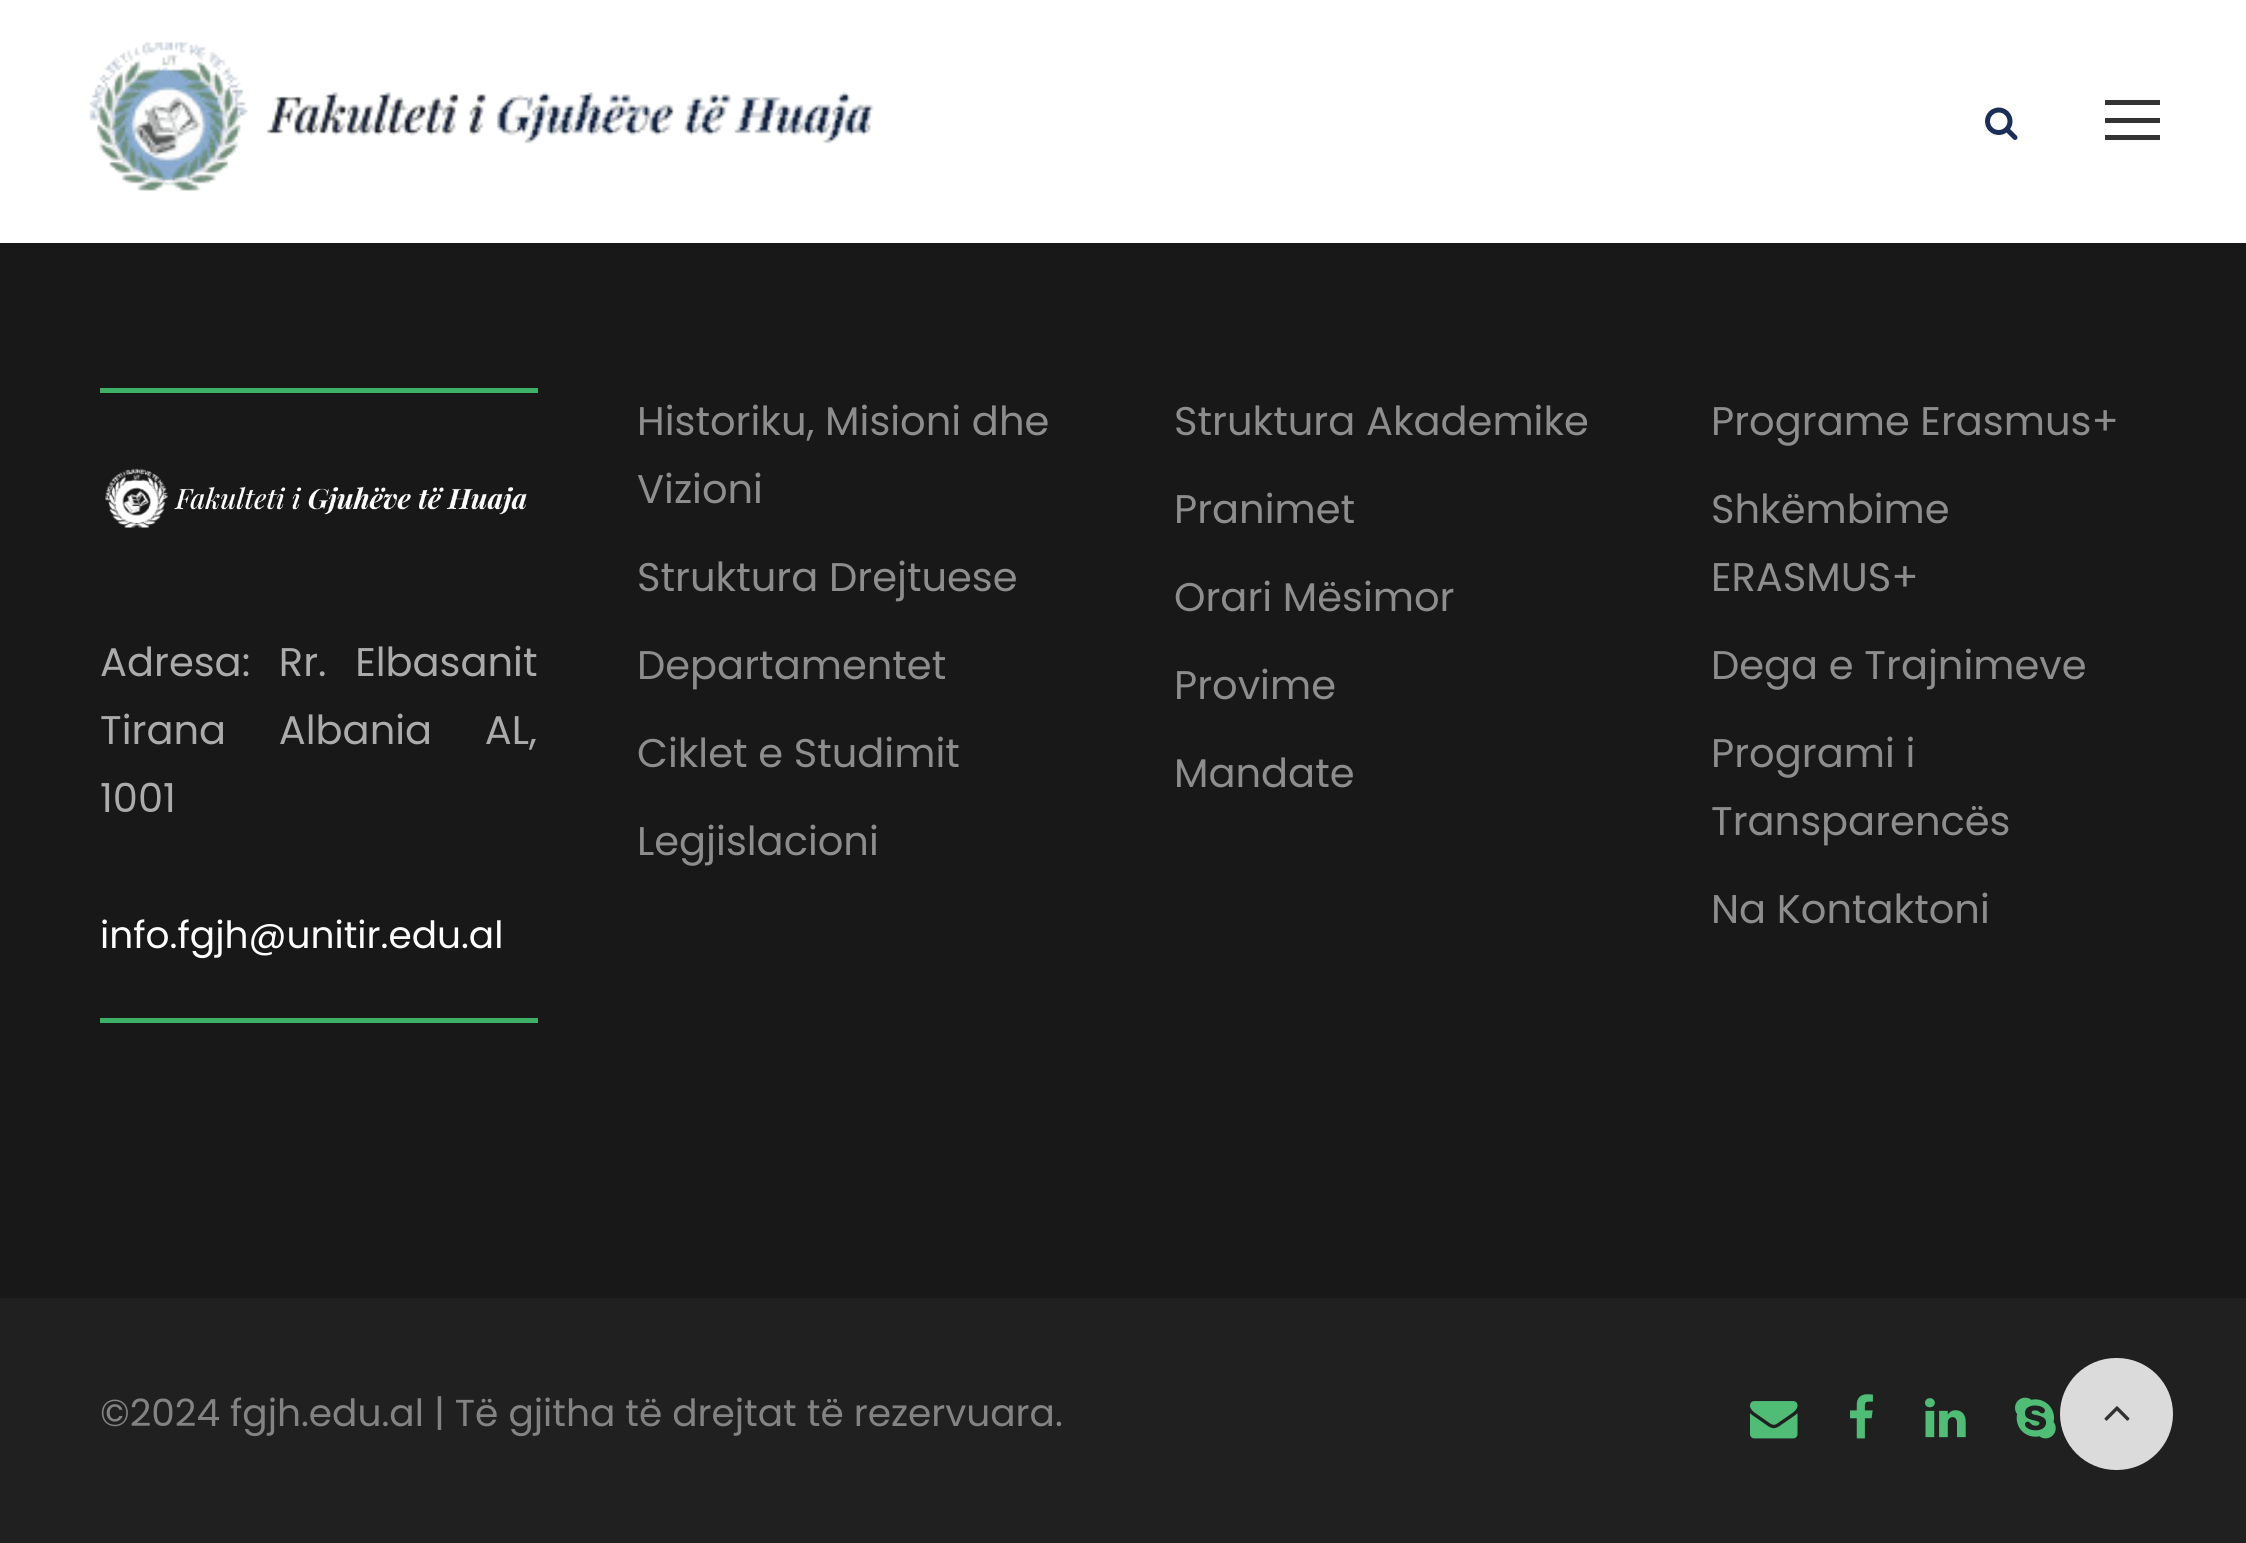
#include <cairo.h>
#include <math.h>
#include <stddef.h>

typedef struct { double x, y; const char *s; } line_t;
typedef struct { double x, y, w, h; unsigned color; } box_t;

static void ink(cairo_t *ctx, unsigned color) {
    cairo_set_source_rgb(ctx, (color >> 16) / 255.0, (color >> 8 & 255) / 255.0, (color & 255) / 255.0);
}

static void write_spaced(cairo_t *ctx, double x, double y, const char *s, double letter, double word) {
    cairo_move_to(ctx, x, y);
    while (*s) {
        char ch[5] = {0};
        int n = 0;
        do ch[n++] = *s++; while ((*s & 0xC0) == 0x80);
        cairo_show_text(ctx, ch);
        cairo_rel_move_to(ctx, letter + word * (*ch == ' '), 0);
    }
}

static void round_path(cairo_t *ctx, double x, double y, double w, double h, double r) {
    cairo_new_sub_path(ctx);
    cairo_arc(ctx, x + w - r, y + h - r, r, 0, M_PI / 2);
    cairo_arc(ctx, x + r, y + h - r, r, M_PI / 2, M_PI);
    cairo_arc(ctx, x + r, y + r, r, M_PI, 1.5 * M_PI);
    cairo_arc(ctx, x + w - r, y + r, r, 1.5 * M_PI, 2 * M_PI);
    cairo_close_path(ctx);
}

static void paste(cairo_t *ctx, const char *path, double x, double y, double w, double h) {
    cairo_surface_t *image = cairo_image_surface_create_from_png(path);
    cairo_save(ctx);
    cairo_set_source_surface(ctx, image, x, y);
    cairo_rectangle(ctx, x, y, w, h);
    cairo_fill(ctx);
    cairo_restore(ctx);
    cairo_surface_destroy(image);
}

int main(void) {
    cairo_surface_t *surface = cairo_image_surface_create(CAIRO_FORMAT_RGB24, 2246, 1543);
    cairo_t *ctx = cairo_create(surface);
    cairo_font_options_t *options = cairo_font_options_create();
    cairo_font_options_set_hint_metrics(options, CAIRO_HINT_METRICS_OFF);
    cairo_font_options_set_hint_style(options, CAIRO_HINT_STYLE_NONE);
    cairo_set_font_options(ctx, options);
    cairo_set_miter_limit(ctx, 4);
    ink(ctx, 0x181818);
    cairo_paint(ctx);
    ink(ctx, 0xFFFFFF);
    cairo_rectangle(ctx, 0, 0, 2246, 243);
    cairo_fill(ctx);
    paste(ctx, "media/1.png", 89, 42, 785, 149);
    paste(ctx, "media/2.png", 1985, 107, 33, 33);
    {
        static const box_t items[] = {
            {2105, 100, 55, 5, 0x333333},
            {2105, 118, 55, 5, 0x333333},
            {2105, 135, 55, 5, 0x333333},
            {100, 388, 438, 5, 0x3DB166},
        };
        for (size_t i = 0; i < sizeof items / sizeof *items; i++) {
            ink(ctx, items[i].color);
            cairo_rectangle(ctx, items[i].x, items[i].y, items[i].w, items[i].h);
            cairo_fill(ctx);
        }
    }
    paste(ctx, "media/3.png", 105, 468, 422, 60);
    cairo_select_font_face(ctx, "Poppins", CAIRO_FONT_SLANT_NORMAL, CAIRO_FONT_WEIGHT_NORMAL);
    cairo_set_font_size(ctx, 40);
    ink(ctx, 0xABABAB);
    write_spaced(ctx, 100, 676, "Adresa: Rr. Elbasanit", 0, 18);
    write_spaced(ctx, 100, 744, "Tirana Albania AL,", 0, 42);
    cairo_move_to(ctx, 100, 812);
    cairo_show_text(ctx, "1001");
    cairo_set_font_size(ctx, 37.5);
    ink(ctx, 0xFFFFFF);
    cairo_move_to(ctx, 100, 948);
    cairo_show_text(ctx, "info.fgjh@unitir.edu.al");
    ink(ctx, 0x3DB166);
    cairo_rectangle(ctx, 100, 1018, 438, 5);
    cairo_fill(ctx);
    cairo_set_font_size(ctx, 40);
    ink(ctx, 0x8D8D8D);
    {
        static const line_t items[] = {
            {637, 435, "Historiku, Misioni dhe"},
            {637, 503, "Vizioni"},
            {637, 591, "Struktura Drejtuese"},
            {637, 679, "Departamentet"},
            {637, 767, "Ciklet e Studimit"},
            {637, 855, "Legjislacioni"},
            {1174, 435, "Struktura Akademike"},
            {1174, 523, "Pranimet"},
            {1174, 611, "Orari Mësimor"},
            {1174, 699, "Provime"},
            {1174, 787, "Mandate"},
            {1711, 435, "Programe Erasmus+"},
            {1711, 523, "Shkëmbime"},
            {1711, 591, "ERASMUS+"},
            {1711, 679, "Dega e Trajnimeve"},
            {1711, 767, "Programi i"},
            {1711, 835, "Transparencës"},
            {1711, 923, "Na Kontaktoni"},
        };
        for (size_t i = 0; i < sizeof items / sizeof *items; i++) {
            cairo_move_to(ctx, items[i].x, items[i].y);
            cairo_show_text(ctx, items[i].s);
        }
    }
    ink(ctx, 0x202020);
    cairo_rectangle(ctx, 0, 1298, 2246, 245);
    cairo_fill(ctx);
    cairo_set_font_size(ctx, 37.5);
    ink(ctx, 0x838383);
    cairo_move_to(ctx, 100, 1426);
    cairo_show_text(ctx, "©2024 fgjh.edu.al | Të gjitha të drejtat të rezervuara.");
    paste(ctx, "media/4.png", 1750, 1401, 48, 38);
    paste(ctx, "media/5.png", 1850, 1394, 23, 45);
    paste(ctx, "media/6.png", 1925, 1398, 41, 40);
    paste(ctx, "media/7.png", 2015, 1397, 41, 42);
    ink(ctx, 0xDBDBDB);
    round_path(ctx, 2060, 1358, 113, 112, 56);
    cairo_fill(ctx);
    paste(ctx, "media/8.png", 2104, 1406, 26, 15);
    cairo_surface_write_to_png(surface, "image.png");
    cairo_font_options_destroy(options);
    cairo_destroy(ctx);
    cairo_surface_destroy(surface);
    return 0;
}
